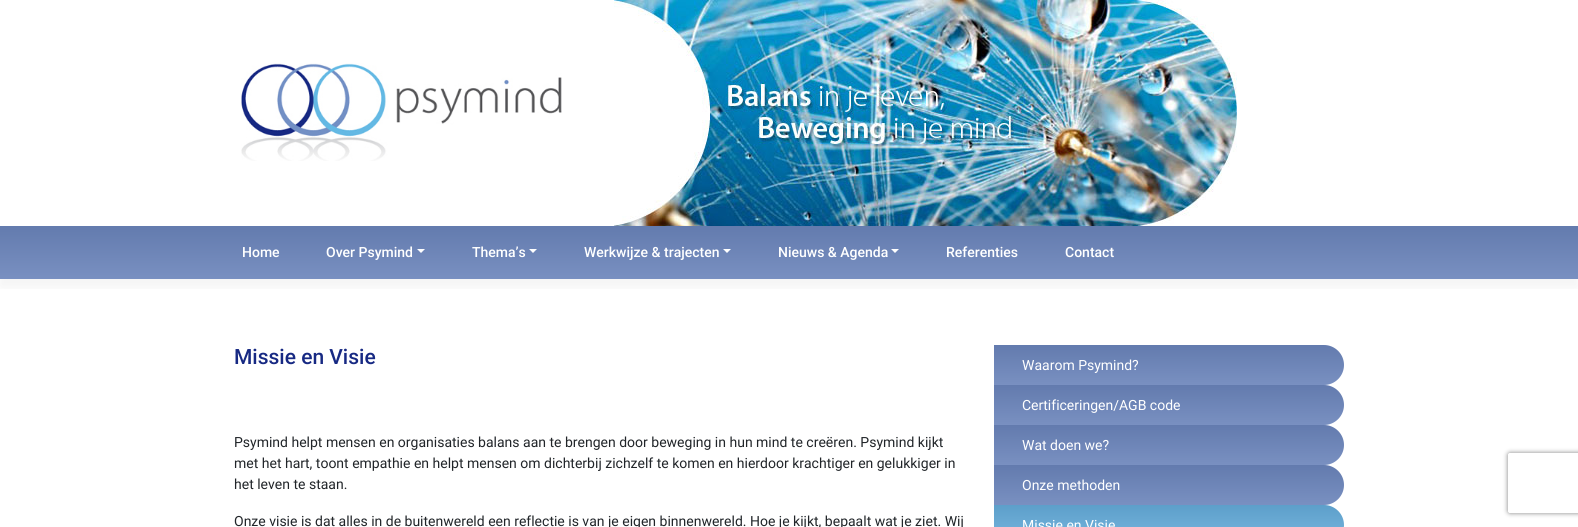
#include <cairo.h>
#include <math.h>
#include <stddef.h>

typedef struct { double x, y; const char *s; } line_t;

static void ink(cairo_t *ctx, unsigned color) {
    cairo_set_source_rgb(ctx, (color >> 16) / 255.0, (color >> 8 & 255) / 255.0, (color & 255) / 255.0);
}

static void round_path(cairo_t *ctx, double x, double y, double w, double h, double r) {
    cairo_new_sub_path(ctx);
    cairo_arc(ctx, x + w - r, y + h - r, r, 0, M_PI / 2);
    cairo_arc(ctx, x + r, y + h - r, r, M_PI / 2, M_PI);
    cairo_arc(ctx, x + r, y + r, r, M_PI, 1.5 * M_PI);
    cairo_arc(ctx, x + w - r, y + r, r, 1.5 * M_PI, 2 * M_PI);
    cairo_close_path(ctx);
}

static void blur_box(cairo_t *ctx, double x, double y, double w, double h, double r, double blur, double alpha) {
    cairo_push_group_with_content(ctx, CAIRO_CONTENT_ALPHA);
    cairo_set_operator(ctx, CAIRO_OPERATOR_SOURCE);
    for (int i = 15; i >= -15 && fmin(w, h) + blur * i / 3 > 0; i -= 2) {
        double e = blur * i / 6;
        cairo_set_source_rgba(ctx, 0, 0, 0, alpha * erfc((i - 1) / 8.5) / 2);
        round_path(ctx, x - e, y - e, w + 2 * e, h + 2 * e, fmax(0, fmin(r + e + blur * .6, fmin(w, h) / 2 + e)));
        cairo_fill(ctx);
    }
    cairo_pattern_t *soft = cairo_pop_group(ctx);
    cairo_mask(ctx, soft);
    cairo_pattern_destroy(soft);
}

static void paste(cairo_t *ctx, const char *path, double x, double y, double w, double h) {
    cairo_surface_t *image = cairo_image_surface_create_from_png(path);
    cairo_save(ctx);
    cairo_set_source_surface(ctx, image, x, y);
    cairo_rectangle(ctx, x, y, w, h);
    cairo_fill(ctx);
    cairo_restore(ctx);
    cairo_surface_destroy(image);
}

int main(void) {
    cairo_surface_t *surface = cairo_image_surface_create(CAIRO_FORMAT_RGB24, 1578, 527);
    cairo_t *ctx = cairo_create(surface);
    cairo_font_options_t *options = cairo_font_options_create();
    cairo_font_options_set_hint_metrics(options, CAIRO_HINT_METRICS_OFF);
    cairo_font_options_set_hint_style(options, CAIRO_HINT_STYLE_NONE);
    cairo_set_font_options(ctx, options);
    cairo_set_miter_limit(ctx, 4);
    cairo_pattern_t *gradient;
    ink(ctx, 0xFFFFFF);
    cairo_paint(ctx);
    cairo_save(ctx);
    cairo_rectangle(ctx, 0, 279, 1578, 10);
    cairo_clip(ctx);
    ink(ctx, 0x000000);
    blur_box(ctx, 0, 8, 1578, 279, 0, 8, 0.05);
    cairo_restore(ctx);
    paste(ctx, "media/1.png", 241, 63, 321, 98);
    paste(ctx, "media/2.png", 614, 0, 623, 226);
    gradient = cairo_pattern_create_linear(789, 226, 789, 279);
    cairo_pattern_add_color_stop_rgba(gradient, 0, 0.388, 0.482, 0.682, 1);
    cairo_pattern_add_color_stop_rgba(gradient, 1, 0.475, 0.565, 0.757, 1);
    cairo_set_source(ctx, gradient);
    cairo_pattern_destroy(gradient);
    cairo_rectangle(ctx, 0, 226, 1578, 53);
    cairo_fill(ctx);
    cairo_select_font_face(ctx, "Roboto Medium", CAIRO_FONT_SLANT_NORMAL, CAIRO_FONT_WEIGHT_NORMAL);
    cairo_set_font_size(ctx, 14);
    ink(ctx, 0xFFFFFF);
    cairo_move_to(ctx, 242, 257);
    cairo_show_text(ctx, "Home");
    cairo_move_to(ctx, 326, 257);
    cairo_show_text(ctx, "Over Psymind");
    cairo_new_path(ctx);
    cairo_move_to(ctx, 417, 249);
    cairo_line_to(ctx, 425, 249);
    cairo_line_to(ctx, 421, 253);
    cairo_close_path(ctx);
    cairo_fill(ctx);
    cairo_move_to(ctx, 472, 257);
    cairo_show_text(ctx, "Thema’s");
    cairo_new_path(ctx);
    cairo_move_to(ctx, 529, 249);
    cairo_line_to(ctx, 537, 249);
    cairo_line_to(ctx, 533, 253);
    cairo_close_path(ctx);
    cairo_fill(ctx);
    cairo_move_to(ctx, 584, 257);
    cairo_show_text(ctx, "Werkwijze & trajecten");
    cairo_new_path(ctx);
    cairo_move_to(ctx, 723, 249);
    cairo_line_to(ctx, 731, 249);
    cairo_line_to(ctx, 727, 253);
    cairo_close_path(ctx);
    cairo_fill(ctx);
    cairo_move_to(ctx, 778, 257);
    cairo_show_text(ctx, "Nieuws & Agenda");
    cairo_new_path(ctx);
    cairo_move_to(ctx, 891, 249);
    cairo_line_to(ctx, 899, 249);
    cairo_line_to(ctx, 895, 253);
    cairo_close_path(ctx);
    cairo_fill(ctx);
    cairo_move_to(ctx, 946, 257);
    cairo_show_text(ctx, "Referenties");
    cairo_move_to(ctx, 1065, 257);
    cairo_show_text(ctx, "Contact");
    cairo_set_font_size(ctx, 21);
    ink(ctx, 0x172983);
    cairo_move_to(ctx, 234, 364);
    cairo_show_text(ctx, "Missie en Visie");
    cairo_select_font_face(ctx, "Roboto", CAIRO_FONT_SLANT_NORMAL, CAIRO_FONT_WEIGHT_NORMAL);
    cairo_set_font_size(ctx, 14);
    ink(ctx, 0x212529);
    {
        static const line_t items[] = {
            {234, 447, "Psymind helpt mensen en organisaties balans aan te brengen door beweging in hun mind te creëren. Psymind kijkt"},
            {234, 468, "met het hart, toont empathie en helpt mensen om dichterbij zichzelf te komen en hierdoor krachtiger en gelukkiger in"},
            {234, 489, "het leven te staan."},
            {234, 526, "Onze visie is dat alles in de buitenwereld een reflectie is van je eigen binnenwereld. Hoe je kijkt, bepaalt wat je ziet. Wij"},
        };
        for (size_t i = 0; i < sizeof items / sizeof *items; i++) {
            cairo_move_to(ctx, items[i].x, items[i].y);
            cairo_show_text(ctx, items[i].s);
        }
    }
    gradient = cairo_pattern_create_linear(1169, 345, 1169, 385);
    cairo_pattern_add_color_stop_rgba(gradient, 0, 0.388, 0.482, 0.682, 1);
    cairo_pattern_add_color_stop_rgba(gradient, 1, 0.475, 0.565, 0.757, 1);
    cairo_set_source(ctx, gradient);
    cairo_pattern_destroy(gradient);
    cairo_new_path(ctx);
    cairo_move_to(ctx, 994, 345);
    cairo_line_to(ctx, 1324, 345);
    cairo_curve_to(ctx, 1335, 345, 1344, 354, 1344, 365);
    cairo_curve_to(ctx, 1344, 376, 1335, 385, 1324, 385);
    cairo_line_to(ctx, 994, 385);
    cairo_close_path(ctx);
    cairo_fill(ctx);
    ink(ctx, 0xFFFFFF);
    cairo_move_to(ctx, 1022, 370);
    cairo_show_text(ctx, "Waarom Psymind?");
    gradient = cairo_pattern_create_linear(1169, 385, 1169, 425);
    cairo_pattern_add_color_stop_rgba(gradient, 0, 0.388, 0.482, 0.682, 1);
    cairo_pattern_add_color_stop_rgba(gradient, 1, 0.475, 0.565, 0.757, 1);
    cairo_set_source(ctx, gradient);
    cairo_pattern_destroy(gradient);
    cairo_new_path(ctx);
    cairo_move_to(ctx, 994, 385);
    cairo_line_to(ctx, 1324, 385);
    cairo_curve_to(ctx, 1335, 385, 1344, 394, 1344, 405);
    cairo_curve_to(ctx, 1344, 416, 1335, 425, 1324, 425);
    cairo_line_to(ctx, 994, 425);
    cairo_close_path(ctx);
    cairo_fill(ctx);
    ink(ctx, 0xFFFFFF);
    cairo_move_to(ctx, 1022, 410);
    cairo_show_text(ctx, "Certificeringen/AGB code");
    gradient = cairo_pattern_create_linear(1169, 425, 1169, 465);
    cairo_pattern_add_color_stop_rgba(gradient, 0, 0.388, 0.482, 0.682, 1);
    cairo_pattern_add_color_stop_rgba(gradient, 1, 0.475, 0.565, 0.757, 1);
    cairo_set_source(ctx, gradient);
    cairo_pattern_destroy(gradient);
    cairo_new_path(ctx);
    cairo_move_to(ctx, 994, 425);
    cairo_line_to(ctx, 1324, 425);
    cairo_curve_to(ctx, 1335, 425, 1344, 434, 1344, 445);
    cairo_curve_to(ctx, 1344, 456, 1335, 465, 1324, 465);
    cairo_line_to(ctx, 994, 465);
    cairo_close_path(ctx);
    cairo_fill(ctx);
    ink(ctx, 0xFFFFFF);
    cairo_move_to(ctx, 1022, 450);
    cairo_show_text(ctx, "Wat doen we?");
    gradient = cairo_pattern_create_linear(1169, 465, 1169, 505);
    cairo_pattern_add_color_stop_rgba(gradient, 0, 0.388, 0.482, 0.682, 1);
    cairo_pattern_add_color_stop_rgba(gradient, 1, 0.475, 0.565, 0.757, 1);
    cairo_set_source(ctx, gradient);
    cairo_pattern_destroy(gradient);
    cairo_new_path(ctx);
    cairo_move_to(ctx, 994, 465);
    cairo_line_to(ctx, 1324, 465);
    cairo_curve_to(ctx, 1335, 465, 1344, 474, 1344, 485);
    cairo_curve_to(ctx, 1344, 496, 1335, 505, 1324, 505);
    cairo_line_to(ctx, 994, 505);
    cairo_close_path(ctx);
    cairo_fill(ctx);
    ink(ctx, 0xFFFFFF);
    cairo_move_to(ctx, 1022, 490);
    cairo_show_text(ctx, "Onze methoden");
    gradient = cairo_pattern_create_linear(1169, 505, 1169, 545);
    cairo_pattern_add_color_stop_rgba(gradient, 0, 0.365, 0.624, 0.792, 1);
    cairo_pattern_add_color_stop_rgba(gradient, 1, 0.471, 0.718, 0.878, 1);
    cairo_set_source(ctx, gradient);
    cairo_pattern_destroy(gradient);
    cairo_new_path(ctx);
    cairo_move_to(ctx, 994, 505);
    cairo_line_to(ctx, 1324, 505);
    cairo_curve_to(ctx, 1335, 505, 1344, 514, 1344, 525);
    cairo_curve_to(ctx, 1344, 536, 1335, 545, 1324, 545);
    cairo_line_to(ctx, 994, 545);
    cairo_close_path(ctx);
    cairo_fill(ctx);
    ink(ctx, 0xFFFFFF);
    cairo_move_to(ctx, 1022, 530);
    cairo_show_text(ctx, "Missie en Visie");
    cairo_save(ctx);
    cairo_set_fill_rule(ctx, CAIRO_FILL_RULE_EVEN_ODD);
    cairo_new_path(ctx);
    cairo_move_to(ctx, 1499, 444);
    cairo_line_to(ctx, 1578, 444);
    cairo_line_to(ctx, 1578, 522);
    cairo_line_to(ctx, 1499, 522);
    cairo_close_path(ctx);
    cairo_move_to(ctx, 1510, 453);
    cairo_line_to(ctx, 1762, 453);
    cairo_curve_to(ctx, 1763, 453, 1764, 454, 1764, 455);
    cairo_line_to(ctx, 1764, 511);
    cairo_curve_to(ctx, 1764, 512, 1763, 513, 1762, 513);
    cairo_line_to(ctx, 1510, 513);
    cairo_curve_to(ctx, 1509, 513, 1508, 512, 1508, 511);
    cairo_line_to(ctx, 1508, 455);
    cairo_curve_to(ctx, 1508, 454, 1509, 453, 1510, 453);
    cairo_close_path(ctx);
    cairo_clip(ctx);
    ink(ctx, 0x808080);
    blur_box(ctx, 1508, 453, 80, 60, 2, 2.5, 1);
    cairo_restore(ctx);
    cairo_surface_write_to_png(surface, "image.png");
    cairo_font_options_destroy(options);
    cairo_destroy(ctx);
    cairo_surface_destroy(surface);
    return 0;
}
